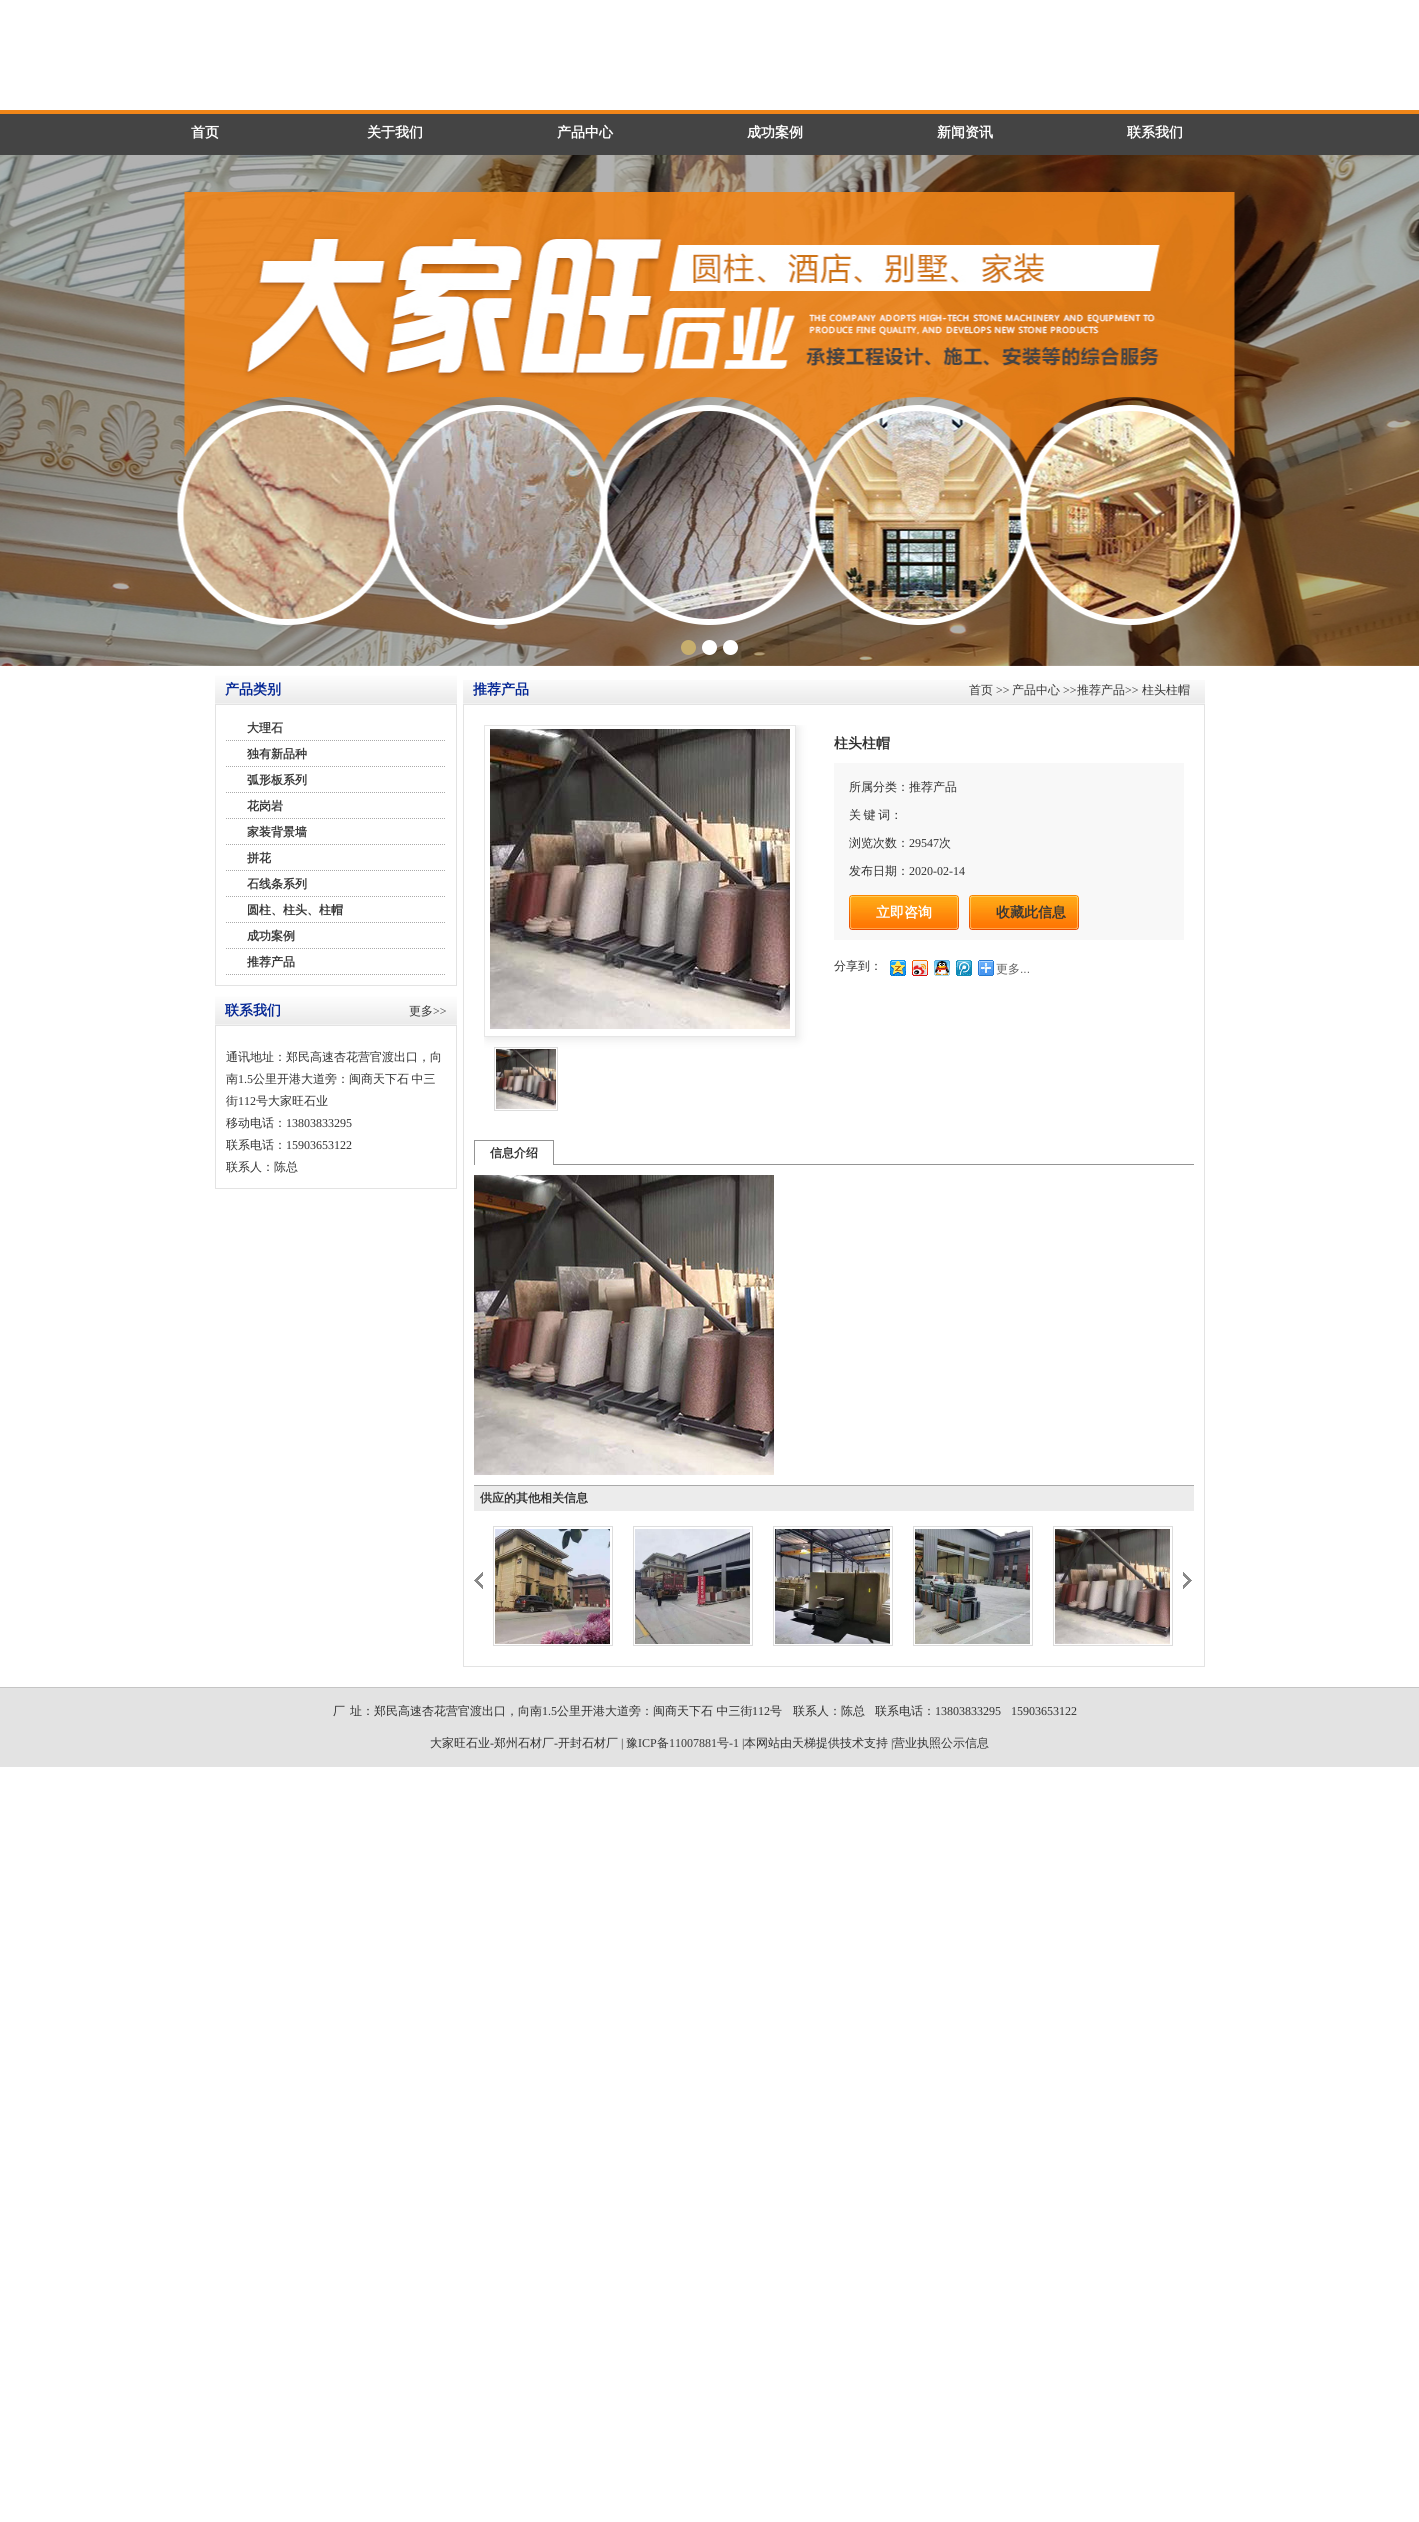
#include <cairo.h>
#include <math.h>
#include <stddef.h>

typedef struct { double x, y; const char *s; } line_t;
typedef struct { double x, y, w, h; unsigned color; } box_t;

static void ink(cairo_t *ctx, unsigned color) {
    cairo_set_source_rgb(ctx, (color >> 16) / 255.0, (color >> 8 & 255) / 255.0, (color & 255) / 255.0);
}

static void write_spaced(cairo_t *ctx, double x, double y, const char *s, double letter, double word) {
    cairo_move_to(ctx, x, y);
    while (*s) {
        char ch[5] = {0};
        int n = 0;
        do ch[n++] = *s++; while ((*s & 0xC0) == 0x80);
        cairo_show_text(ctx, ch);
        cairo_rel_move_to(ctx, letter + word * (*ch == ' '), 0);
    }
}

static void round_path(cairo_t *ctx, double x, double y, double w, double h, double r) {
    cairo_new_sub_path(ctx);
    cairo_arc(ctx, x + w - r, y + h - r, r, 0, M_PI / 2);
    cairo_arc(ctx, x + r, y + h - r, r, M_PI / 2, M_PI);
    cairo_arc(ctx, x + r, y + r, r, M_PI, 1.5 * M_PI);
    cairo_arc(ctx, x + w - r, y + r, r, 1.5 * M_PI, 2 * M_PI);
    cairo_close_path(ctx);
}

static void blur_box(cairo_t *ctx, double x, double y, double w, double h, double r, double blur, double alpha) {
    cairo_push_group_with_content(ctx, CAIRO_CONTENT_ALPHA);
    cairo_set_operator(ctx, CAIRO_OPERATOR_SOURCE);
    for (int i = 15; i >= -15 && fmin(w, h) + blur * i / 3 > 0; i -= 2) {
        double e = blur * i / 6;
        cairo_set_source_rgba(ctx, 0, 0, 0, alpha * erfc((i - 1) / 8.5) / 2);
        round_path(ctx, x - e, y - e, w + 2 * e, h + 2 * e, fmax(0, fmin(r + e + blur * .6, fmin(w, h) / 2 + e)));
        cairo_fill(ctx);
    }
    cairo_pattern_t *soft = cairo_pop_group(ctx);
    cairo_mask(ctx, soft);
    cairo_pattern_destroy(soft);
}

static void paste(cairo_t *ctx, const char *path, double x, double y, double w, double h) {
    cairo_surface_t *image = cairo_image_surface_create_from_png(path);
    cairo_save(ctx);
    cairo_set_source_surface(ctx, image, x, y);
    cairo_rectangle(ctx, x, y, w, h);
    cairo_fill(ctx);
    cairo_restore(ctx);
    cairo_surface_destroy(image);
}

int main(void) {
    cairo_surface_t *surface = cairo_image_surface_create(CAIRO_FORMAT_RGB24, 1419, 2522);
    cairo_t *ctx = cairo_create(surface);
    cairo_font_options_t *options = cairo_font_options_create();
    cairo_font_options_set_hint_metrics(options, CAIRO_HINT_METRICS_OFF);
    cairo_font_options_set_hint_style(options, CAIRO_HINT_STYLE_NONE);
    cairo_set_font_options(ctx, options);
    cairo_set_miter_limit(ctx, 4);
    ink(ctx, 0xFFFFFF);
    cairo_paint(ctx);
    paste(ctx, "media/1.png", 0, 110, 1419, 45);
    paste(ctx, "media/2.png", 110, 110, 1200, 45);
    cairo_select_font_face(ctx, "WenQuanYi Zen Hei", CAIRO_FONT_SLANT_NORMAL, CAIRO_FONT_WEIGHT_BOLD);
    cairo_set_font_size(ctx, 14);
    ink(ctx, 0xFFFFFF);
    {
        static const line_t items[] = {
            {191, 137, "首页"},
            {367, 137, "关于我们"},
            {557, 137, "产品中心"},
            {747, 137, "成功案例"},
            {937, 137, "新闻资讯"},
            {1127, 137, "联系我们"},
        };
        for (size_t i = 0; i < sizeof items / sizeof *items; i++) {
            cairo_move_to(ctx, items[i].x, items[i].y);
            cairo_show_text(ctx, items[i].s);
        }
    }
    paste(ctx, "media/3.png", 0, 155, 1419, 511);
    ink(ctx, 0xC7AE6D);
    cairo_arc(ctx, 688.5, 647.5, 7.5, 0, 2 * M_PI);
    cairo_fill(ctx);
    ink(ctx, 0xFFFFFF);
    cairo_arc(ctx, 709.5, 647.5, 7.5, 0, 2 * M_PI);
    cairo_fill(ctx);
    cairo_arc(ctx, 730.5, 647.5, 7.5, 0, 2 * M_PI);
    cairo_fill(ctx);
    paste(ctx, "media/4.png", 215, 675, 242, 30);
    ink(ctx, 0x032694);
    cairo_move_to(ctx, 225, 694);
    cairo_show_text(ctx, "产品类别");
    {
        static const box_t items[] = {
            {456, 705, 1, 281, 0xE3E3E3},
            {215, 985, 242, 1, 0xE3E3E3},
            {215, 705, 1, 281, 0xE3E3E3},
        };
        for (size_t i = 0; i < sizeof items / sizeof *items; i++) {
            ink(ctx, items[i].color);
            cairo_rectangle(ctx, items[i].x, items[i].y, items[i].w, items[i].h);
            cairo_fill(ctx);
        }
    }
    cairo_new_path(ctx);
    cairo_move_to(ctx, 226, 740.5);
    cairo_line_to(ctx, 446, 740.5);
    ink(ctx, 0xAAAAAA);
    cairo_set_line_width(ctx, 1);
    cairo_set_dash(ctx, (double[]){1, 1}, 2, 0);
    cairo_stroke(ctx);
    cairo_set_font_size(ctx, 12);
    ink(ctx, 0x373737);
    cairo_move_to(ctx, 247, 732);
    cairo_show_text(ctx, "大理石");
    cairo_new_path(ctx);
    cairo_move_to(ctx, 226, 766.5);
    cairo_line_to(ctx, 446, 766.5);
    ink(ctx, 0xAAAAAA);
    cairo_stroke(ctx);
    ink(ctx, 0x373737);
    cairo_move_to(ctx, 247, 758);
    cairo_show_text(ctx, "独有新品种");
    cairo_new_path(ctx);
    cairo_move_to(ctx, 226, 792.5);
    cairo_line_to(ctx, 446, 792.5);
    ink(ctx, 0xAAAAAA);
    cairo_stroke(ctx);
    ink(ctx, 0x373737);
    cairo_move_to(ctx, 247, 784);
    cairo_show_text(ctx, "弧形板系列");
    cairo_new_path(ctx);
    cairo_move_to(ctx, 226, 818.5);
    cairo_line_to(ctx, 446, 818.5);
    ink(ctx, 0xAAAAAA);
    cairo_stroke(ctx);
    ink(ctx, 0x373737);
    cairo_move_to(ctx, 247, 810);
    cairo_show_text(ctx, "花岗岩");
    cairo_new_path(ctx);
    cairo_move_to(ctx, 226, 844.5);
    cairo_line_to(ctx, 446, 844.5);
    ink(ctx, 0xAAAAAA);
    cairo_stroke(ctx);
    ink(ctx, 0x373737);
    cairo_move_to(ctx, 247, 836);
    cairo_show_text(ctx, "家装背景墙");
    cairo_new_path(ctx);
    cairo_move_to(ctx, 226, 870.5);
    cairo_line_to(ctx, 446, 870.5);
    ink(ctx, 0xAAAAAA);
    cairo_stroke(ctx);
    ink(ctx, 0x373737);
    cairo_move_to(ctx, 247, 862);
    cairo_show_text(ctx, "拼花");
    cairo_new_path(ctx);
    cairo_move_to(ctx, 226, 896.5);
    cairo_line_to(ctx, 446, 896.5);
    ink(ctx, 0xAAAAAA);
    cairo_stroke(ctx);
    ink(ctx, 0x373737);
    cairo_move_to(ctx, 247, 888);
    cairo_show_text(ctx, "石线条系列");
    cairo_new_path(ctx);
    cairo_move_to(ctx, 226, 922.5);
    cairo_line_to(ctx, 446, 922.5);
    ink(ctx, 0xAAAAAA);
    cairo_stroke(ctx);
    ink(ctx, 0x373737);
    cairo_move_to(ctx, 247, 914);
    cairo_show_text(ctx, "圆柱、柱头、柱帽");
    cairo_new_path(ctx);
    cairo_move_to(ctx, 226, 948.5);
    cairo_line_to(ctx, 446, 948.5);
    ink(ctx, 0xAAAAAA);
    cairo_stroke(ctx);
    ink(ctx, 0x373737);
    cairo_move_to(ctx, 247, 940);
    cairo_show_text(ctx, "成功案例");
    cairo_new_path(ctx);
    cairo_move_to(ctx, 226, 974.5);
    cairo_line_to(ctx, 446, 974.5);
    ink(ctx, 0xAAAAAA);
    cairo_stroke(ctx);
    ink(ctx, 0x373737);
    cairo_move_to(ctx, 247, 966);
    cairo_show_text(ctx, "推荐产品");
    paste(ctx, "media/4.png", 215, 996, 242, 30);
    cairo_set_font_size(ctx, 14);
    ink(ctx, 0x032694);
    cairo_move_to(ctx, 225, 1015);
    cairo_show_text(ctx, "联系我们");
    cairo_select_font_face(ctx, "WenQuanYi Zen Hei Medium", CAIRO_FONT_SLANT_NORMAL, CAIRO_FONT_WEIGHT_NORMAL);
    cairo_set_font_size(ctx, 12);
    ink(ctx, 0x373737);
    cairo_move_to(ctx, 409, 1015);
    cairo_show_text(ctx, "更多");
    cairo_select_font_face(ctx, "Liberation Serif", CAIRO_FONT_SLANT_NORMAL, CAIRO_FONT_WEIGHT_NORMAL);
    cairo_move_to(ctx, 433, 1015);
    cairo_show_text(ctx, ">>");
    {
        static const box_t items[] = {
            {456, 1026, 1, 163, 0xE3E3E3},
            {215, 1188, 242, 1, 0xE3E3E3},
            {215, 1026, 1, 163, 0xE3E3E3},
        };
        for (size_t i = 0; i < sizeof items / sizeof *items; i++) {
            ink(ctx, items[i].color);
            cairo_rectangle(ctx, items[i].x, items[i].y, items[i].w, items[i].h);
            cairo_fill(ctx);
        }
    }
    cairo_select_font_face(ctx, "WenQuanYi Zen Hei Medium", CAIRO_FONT_SLANT_NORMAL, CAIRO_FONT_WEIGHT_NORMAL);
    ink(ctx, 0x313131);
    cairo_move_to(ctx, 226, 1061);
    cairo_show_text(ctx, "通讯地址：郑民高速杏花营官渡出口，向");
    cairo_move_to(ctx, 226, 1083);
    cairo_show_text(ctx, "南");
    cairo_select_font_face(ctx, "Liberation Serif", CAIRO_FONT_SLANT_NORMAL, CAIRO_FONT_WEIGHT_NORMAL);
    cairo_move_to(ctx, 238, 1083);
    cairo_show_text(ctx, "1.5");
    cairo_select_font_face(ctx, "WenQuanYi Zen Hei Medium", CAIRO_FONT_SLANT_NORMAL, CAIRO_FONT_WEIGHT_NORMAL);
    write_spaced(ctx, 253, 1083, "公里开港大道旁：闽商天下石 中三", 0, -1);
    cairo_move_to(ctx, 226, 1105);
    cairo_show_text(ctx, "街");
    cairo_select_font_face(ctx, "Liberation Serif", CAIRO_FONT_SLANT_NORMAL, CAIRO_FONT_WEIGHT_NORMAL);
    cairo_move_to(ctx, 238, 1105);
    cairo_show_text(ctx, "112");
    cairo_select_font_face(ctx, "WenQuanYi Zen Hei Medium", CAIRO_FONT_SLANT_NORMAL, CAIRO_FONT_WEIGHT_NORMAL);
    cairo_move_to(ctx, 256, 1105);
    cairo_show_text(ctx, "号大家旺石业");
    cairo_move_to(ctx, 226, 1127);
    cairo_show_text(ctx, "移动电话：");
    cairo_select_font_face(ctx, "Liberation Serif", CAIRO_FONT_SLANT_NORMAL, CAIRO_FONT_WEIGHT_NORMAL);
    cairo_move_to(ctx, 286, 1127);
    cairo_show_text(ctx, "13803833295");
    cairo_select_font_face(ctx, "WenQuanYi Zen Hei Medium", CAIRO_FONT_SLANT_NORMAL, CAIRO_FONT_WEIGHT_NORMAL);
    cairo_move_to(ctx, 226, 1149);
    cairo_show_text(ctx, "联系电话：");
    cairo_select_font_face(ctx, "Liberation Serif", CAIRO_FONT_SLANT_NORMAL, CAIRO_FONT_WEIGHT_NORMAL);
    cairo_move_to(ctx, 286, 1149);
    cairo_show_text(ctx, "15903653122");
    cairo_select_font_face(ctx, "WenQuanYi Zen Hei Medium", CAIRO_FONT_SLANT_NORMAL, CAIRO_FONT_WEIGHT_NORMAL);
    cairo_move_to(ctx, 226, 1171);
    cairo_show_text(ctx, "联系人：陈总");
    paste(ctx, "media/5.png", 463, 680, 742, 25);
    cairo_select_font_face(ctx, "WenQuanYi Zen Hei", CAIRO_FONT_SLANT_NORMAL, CAIRO_FONT_WEIGHT_BOLD);
    cairo_set_font_size(ctx, 14);
    ink(ctx, 0x032694);
    cairo_move_to(ctx, 473, 694);
    cairo_show_text(ctx, "推荐产品");
    cairo_select_font_face(ctx, "WenQuanYi Zen Hei Medium", CAIRO_FONT_SLANT_NORMAL, CAIRO_FONT_WEIGHT_NORMAL);
    cairo_set_font_size(ctx, 12);
    ink(ctx, 0x373737);
    cairo_move_to(ctx, 969, 694);
    cairo_show_text(ctx, "首页");
    cairo_select_font_face(ctx, "Liberation Serif", CAIRO_FONT_SLANT_NORMAL, CAIRO_FONT_WEIGHT_NORMAL);
    ink(ctx, 0x313131);
    cairo_move_to(ctx, 996, 694);
    cairo_show_text(ctx, ">>");
    cairo_select_font_face(ctx, "WenQuanYi Zen Hei Medium", CAIRO_FONT_SLANT_NORMAL, CAIRO_FONT_WEIGHT_NORMAL);
    ink(ctx, 0x373737);
    cairo_move_to(ctx, 1012, 694);
    cairo_show_text(ctx, "产品中心");
    cairo_select_font_face(ctx, "Liberation Serif", CAIRO_FONT_SLANT_NORMAL, CAIRO_FONT_WEIGHT_NORMAL);
    ink(ctx, 0x313131);
    cairo_move_to(ctx, 1063, 694);
    cairo_show_text(ctx, ">>");
    cairo_select_font_face(ctx, "WenQuanYi Zen Hei Medium", CAIRO_FONT_SLANT_NORMAL, CAIRO_FONT_WEIGHT_NORMAL);
    ink(ctx, 0x373737);
    cairo_move_to(ctx, 1077, 694);
    cairo_show_text(ctx, "推荐产品");
    cairo_select_font_face(ctx, "Liberation Serif", CAIRO_FONT_SLANT_NORMAL, CAIRO_FONT_WEIGHT_NORMAL);
    ink(ctx, 0x313131);
    cairo_move_to(ctx, 1125, 694);
    cairo_show_text(ctx, ">>");
    cairo_select_font_face(ctx, "WenQuanYi Zen Hei Medium", CAIRO_FONT_SLANT_NORMAL, CAIRO_FONT_WEIGHT_NORMAL);
    ink(ctx, 0x373737);
    cairo_move_to(ctx, 1142, 694);
    cairo_show_text(ctx, "柱头柱帽");
    {
        static const box_t items[] = {
            {1204, 705, 1, 962, 0xE3E3E3},
            {463, 1666, 742, 1, 0xE3E3E3},
            {463, 705, 1, 962, 0xE3E3E3},
        };
        for (size_t i = 0; i < sizeof items / sizeof *items; i++) {
            ink(ctx, items[i].color);
            cairo_rectangle(ctx, items[i].x, items[i].y, items[i].w, items[i].h);
            cairo_fill(ctx);
        }
    }
    cairo_save(ctx);
    cairo_rectangle(ctx, 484, 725, 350, 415);
    cairo_clip(ctx);
    cairo_set_fill_rule(ctx, CAIRO_FILL_RULE_EVEN_ODD);
    cairo_new_path(ctx);
    cairo_move_to(ctx, 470, 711);
    cairo_line_to(ctx, 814, 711);
    cairo_line_to(ctx, 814, 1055);
    cairo_line_to(ctx, 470, 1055);
    cairo_close_path(ctx);
    cairo_move_to(ctx, 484, 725);
    cairo_line_to(ctx, 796, 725);
    cairo_line_to(ctx, 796, 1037);
    cairo_line_to(ctx, 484, 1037);
    cairo_close_path(ctx);
    cairo_clip(ctx);
    ink(ctx, 0xE6E6E6);
    blur_box(ctx, 486, 727, 312, 312, 0, 5, 1);
    cairo_restore(ctx);
    cairo_rectangle(ctx, 484.5, 725.5, 311, 311);
    ink(ctx, 0xE6E6E6);
    cairo_set_dash(ctx, NULL, 0, 0);
    cairo_stroke(ctx);
    paste(ctx, "media/6.png", 490, 729, 300, 300);
    cairo_rectangle(ctx, 494.5, 1047.5, 63, 63);
    ink(ctx, 0xDDDDDD);
    cairo_stroke(ctx);
    paste(ctx, "media/7.png", 496, 1049, 60, 60);
    cairo_select_font_face(ctx, "WenQuanYi Zen Hei", CAIRO_FONT_SLANT_NORMAL, CAIRO_FONT_WEIGHT_BOLD);
    cairo_set_font_size(ctx, 14);
    ink(ctx, 0x313131);
    cairo_move_to(ctx, 834, 748);
    cairo_show_text(ctx, "柱头柱帽");
    ink(ctx, 0xF8F8F8);
    cairo_rectangle(ctx, 834, 763, 350, 177);
    cairo_fill(ctx);
    cairo_select_font_face(ctx, "WenQuanYi Zen Hei Medium", CAIRO_FONT_SLANT_NORMAL, CAIRO_FONT_WEIGHT_NORMAL);
    cairo_set_font_size(ctx, 12);
    ink(ctx, 0x313131);
    cairo_move_to(ctx, 849, 791);
    cairo_show_text(ctx, "所属分类：推荐产品");
    write_spaced(ctx, 849, 819, "关 键 词：", 0, -1);
    cairo_move_to(ctx, 849, 847);
    cairo_show_text(ctx, "浏览次数：");
    cairo_select_font_face(ctx, "Liberation Serif", CAIRO_FONT_SLANT_NORMAL, CAIRO_FONT_WEIGHT_NORMAL);
    cairo_move_to(ctx, 909, 847);
    cairo_show_text(ctx, "29547");
    cairo_select_font_face(ctx, "WenQuanYi Zen Hei Medium", CAIRO_FONT_SLANT_NORMAL, CAIRO_FONT_WEIGHT_NORMAL);
    cairo_move_to(ctx, 939, 847);
    cairo_show_text(ctx, "次");
    cairo_move_to(ctx, 849, 875);
    cairo_show_text(ctx, "发布日期：");
    cairo_select_font_face(ctx, "Liberation Serif", CAIRO_FONT_SLANT_NORMAL, CAIRO_FONT_WEIGHT_NORMAL);
    cairo_move_to(ctx, 909, 875);
    cairo_show_text(ctx, "2020-02-14");
    paste(ctx, "media/8.png", 849, 895, 110, 35);
    cairo_select_font_face(ctx, "WenQuanYi Zen Hei", CAIRO_FONT_SLANT_NORMAL, CAIRO_FONT_WEIGHT_BOLD);
    cairo_set_font_size(ctx, 14);
    ink(ctx, 0xFFFFFF);
    cairo_move_to(ctx, 876, 917);
    cairo_show_text(ctx, "立即咨询");
    paste(ctx, "media/8.png", 969, 895, 110, 35);
    ink(ctx, 0x373737);
    cairo_move_to(ctx, 996, 917);
    cairo_show_text(ctx, "收藏此信息");
    cairo_select_font_face(ctx, "WenQuanYi Zen Hei Medium", CAIRO_FONT_SLANT_NORMAL, CAIRO_FONT_WEIGHT_NORMAL);
    cairo_set_font_size(ctx, 12);
    ink(ctx, 0x313131);
    cairo_move_to(ctx, 834, 970);
    cairo_show_text(ctx, "分享到：");
    paste(ctx, "media/9.png", 890, 960, 16, 16);
    paste(ctx, "media/10.png", 912, 960, 16, 16);
    paste(ctx, "media/11.png", 934, 960, 16, 16);
    paste(ctx, "media/12.png", 956, 960, 16, 16);
    paste(ctx, "media/13.png", 978, 960, 16, 16);
    ink(ctx, 0x626262);
    cairo_move_to(ctx, 996, 973);
    cairo_show_text(ctx, "更多");
    cairo_select_font_face(ctx, "Liberation Sans", CAIRO_FONT_SLANT_NORMAL, CAIRO_FONT_WEIGHT_NORMAL);
    cairo_move_to(ctx, 1020, 973);
    cairo_show_text(ctx, "...");
    {
        static const box_t items[] = {
            {554, 1164, 640, 1, 0x949494},
            {474, 1140, 80, 1, 0x949494},
            {553, 1140, 1, 25, 0x949494},
            {474, 1140, 1, 25, 0x949494},
        };
        for (size_t i = 0; i < sizeof items / sizeof *items; i++) {
            ink(ctx, items[i].color);
            cairo_rectangle(ctx, items[i].x, items[i].y, items[i].w, items[i].h);
            cairo_fill(ctx);
        }
    }
    cairo_select_font_face(ctx, "WenQuanYi Zen Hei", CAIRO_FONT_SLANT_NORMAL, CAIRO_FONT_WEIGHT_BOLD);
    ink(ctx, 0x313131);
    cairo_move_to(ctx, 490, 1157);
    cairo_show_text(ctx, "信息介绍");
    paste(ctx, "media/14.png", 474, 1175, 300, 300);
    ink(ctx, 0xECECEC);
    cairo_rectangle(ctx, 474, 1486, 720, 25);
    cairo_fill(ctx);
    ink(ctx, 0xA9A9A9);
    cairo_rectangle(ctx, 474, 1485, 720, 1);
    cairo_fill(ctx);
    ink(ctx, 0x313131);
    cairo_move_to(ctx, 480, 1502);
    cairo_show_text(ctx, "供应的其他相关信息");
    paste(ctx, "media/15.png", 474, 1572, 9, 17);
    cairo_rectangle(ctx, 493.5, 1526.5, 119, 119);
    ink(ctx, 0xDDDDDD);
    cairo_stroke(ctx);
    paste(ctx, "media/16.png", 495, 1529, 115, 115);
    cairo_rectangle(ctx, 633.5, 1526.5, 119, 119);
    cairo_stroke(ctx);
    paste(ctx, "media/17.png", 635, 1529, 115, 115);
    cairo_rectangle(ctx, 773.5, 1526.5, 119, 119);
    cairo_stroke(ctx);
    paste(ctx, "media/18.png", 775, 1529, 115, 115);
    cairo_rectangle(ctx, 913.5, 1526.5, 119, 119);
    cairo_stroke(ctx);
    paste(ctx, "media/19.png", 915, 1529, 115, 115);
    cairo_rectangle(ctx, 1053.5, 1526.5, 119, 119);
    cairo_stroke(ctx);
    paste(ctx, "media/20.png", 1055, 1529, 115, 115);
    paste(ctx, "media/21.png", 1183, 1572, 9, 17);
    ink(ctx, 0xE3E3E3);
    cairo_rectangle(ctx, 0, 1688, 1419, 79);
    cairo_fill(ctx);
    ink(ctx, 0xC5C5C5);
    cairo_rectangle(ctx, 0, 1687, 1419, 1);
    cairo_fill(ctx);
    cairo_select_font_face(ctx, "WenQuanYi Zen Hei Medium", CAIRO_FONT_SLANT_NORMAL, CAIRO_FONT_WEIGHT_NORMAL);
    ink(ctx, 0x313131);
    cairo_move_to(ctx, 333, 1715);
    cairo_show_text(ctx, "厂");
    cairo_move_to(ctx, 350, 1715);
    cairo_show_text(ctx, "址：郑民高速杏花营官渡出口，向南");
    cairo_select_font_face(ctx, "Liberation Serif", CAIRO_FONT_SLANT_NORMAL, CAIRO_FONT_WEIGHT_NORMAL);
    cairo_move_to(ctx, 542, 1715);
    cairo_show_text(ctx, "1.5");
    cairo_select_font_face(ctx, "WenQuanYi Zen Hei Medium", CAIRO_FONT_SLANT_NORMAL, CAIRO_FONT_WEIGHT_NORMAL);
    cairo_move_to(ctx, 557, 1715);
    cairo_show_text(ctx, "公里开港大道旁：闽商天下石 中三街");
    cairo_select_font_face(ctx, "Liberation Serif", CAIRO_FONT_SLANT_NORMAL, CAIRO_FONT_WEIGHT_NORMAL);
    cairo_move_to(ctx, 752, 1715);
    cairo_show_text(ctx, "112");
    cairo_select_font_face(ctx, "WenQuanYi Zen Hei Medium", CAIRO_FONT_SLANT_NORMAL, CAIRO_FONT_WEIGHT_NORMAL);
    {
        static const line_t items[] = {
            {770, 1715, "号"},
            {793, 1715, "联系人：陈总"},
            {875, 1715, "联系电话："},
        };
        for (size_t i = 0; i < sizeof items / sizeof *items; i++) {
            cairo_move_to(ctx, items[i].x, items[i].y);
            cairo_show_text(ctx, items[i].s);
        }
    }
    cairo_select_font_face(ctx, "Liberation Serif", CAIRO_FONT_SLANT_NORMAL, CAIRO_FONT_WEIGHT_NORMAL);
    cairo_move_to(ctx, 935, 1715);
    cairo_show_text(ctx, "13803833295");
    cairo_move_to(ctx, 1011, 1715);
    cairo_show_text(ctx, "15903653122");
    cairo_select_font_face(ctx, "WenQuanYi Zen Hei Medium", CAIRO_FONT_SLANT_NORMAL, CAIRO_FONT_WEIGHT_NORMAL);
    cairo_move_to(ctx, 430, 1747);
    cairo_show_text(ctx, "大家旺石业");
    cairo_select_font_face(ctx, "Liberation Serif", CAIRO_FONT_SLANT_NORMAL, CAIRO_FONT_WEIGHT_NORMAL);
    cairo_move_to(ctx, 490, 1747);
    cairo_show_text(ctx, "-");
    cairo_select_font_face(ctx, "WenQuanYi Zen Hei Medium", CAIRO_FONT_SLANT_NORMAL, CAIRO_FONT_WEIGHT_NORMAL);
    cairo_move_to(ctx, 494, 1747);
    cairo_show_text(ctx, "郑州石材厂");
    cairo_select_font_face(ctx, "Liberation Serif", CAIRO_FONT_SLANT_NORMAL, CAIRO_FONT_WEIGHT_NORMAL);
    cairo_move_to(ctx, 554, 1747);
    cairo_show_text(ctx, "-");
    cairo_select_font_face(ctx, "WenQuanYi Zen Hei Medium", CAIRO_FONT_SLANT_NORMAL, CAIRO_FONT_WEIGHT_NORMAL);
    cairo_move_to(ctx, 558, 1747);
    cairo_show_text(ctx, "开封石材厂");
    cairo_select_font_face(ctx, "Liberation Serif", CAIRO_FONT_SLANT_NORMAL, CAIRO_FONT_WEIGHT_NORMAL);
    cairo_move_to(ctx, 621, 1747);
    cairo_show_text(ctx, "|");
    cairo_select_font_face(ctx, "WenQuanYi Zen Hei Medium", CAIRO_FONT_SLANT_NORMAL, CAIRO_FONT_WEIGHT_NORMAL);
    ink(ctx, 0x373737);
    cairo_move_to(ctx, 626, 1747);
    cairo_show_text(ctx, "豫");
    cairo_select_font_face(ctx, "Liberation Serif", CAIRO_FONT_SLANT_NORMAL, CAIRO_FONT_WEIGHT_NORMAL);
    cairo_move_to(ctx, 638, 1747);
    cairo_show_text(ctx, "ICP");
    cairo_select_font_face(ctx, "WenQuanYi Zen Hei Medium", CAIRO_FONT_SLANT_NORMAL, CAIRO_FONT_WEIGHT_NORMAL);
    cairo_move_to(ctx, 657, 1747);
    cairo_show_text(ctx, "备");
    cairo_select_font_face(ctx, "Liberation Serif", CAIRO_FONT_SLANT_NORMAL, CAIRO_FONT_WEIGHT_NORMAL);
    cairo_move_to(ctx, 669, 1747);
    cairo_show_text(ctx, "11007881");
    cairo_select_font_face(ctx, "WenQuanYi Zen Hei Medium", CAIRO_FONT_SLANT_NORMAL, CAIRO_FONT_WEIGHT_NORMAL);
    cairo_move_to(ctx, 717, 1747);
    cairo_show_text(ctx, "号");
    cairo_select_font_face(ctx, "Liberation Serif", CAIRO_FONT_SLANT_NORMAL, CAIRO_FONT_WEIGHT_NORMAL);
    cairo_move_to(ctx, 729, 1747);
    cairo_show_text(ctx, "-1");
    ink(ctx, 0x313131);
    cairo_move_to(ctx, 742, 1747);
    cairo_show_text(ctx, "|");
    cairo_select_font_face(ctx, "WenQuanYi Zen Hei Medium", CAIRO_FONT_SLANT_NORMAL, CAIRO_FONT_WEIGHT_NORMAL);
    cairo_move_to(ctx, 744, 1747);
    cairo_show_text(ctx, "本网站由");
    ink(ctx, 0x373737);
    cairo_move_to(ctx, 792, 1747);
    cairo_show_text(ctx, "天梯");
    ink(ctx, 0x313131);
    cairo_move_to(ctx, 816, 1747);
    cairo_show_text(ctx, "提供技术支持");
    cairo_select_font_face(ctx, "Liberation Serif", CAIRO_FONT_SLANT_NORMAL, CAIRO_FONT_WEIGHT_NORMAL);
    ink(ctx, 0x373737);
    cairo_move_to(ctx, 891, 1747);
    cairo_show_text(ctx, "|");
    cairo_select_font_face(ctx, "WenQuanYi Zen Hei Medium", CAIRO_FONT_SLANT_NORMAL, CAIRO_FONT_WEIGHT_NORMAL);
    cairo_move_to(ctx, 893, 1747);
    cairo_show_text(ctx, "营业执照公示信息");
    cairo_surface_write_to_png(surface, "image.png");
    cairo_font_options_destroy(options);
    cairo_destroy(ctx);
    cairo_surface_destroy(surface);
    return 0;
}
